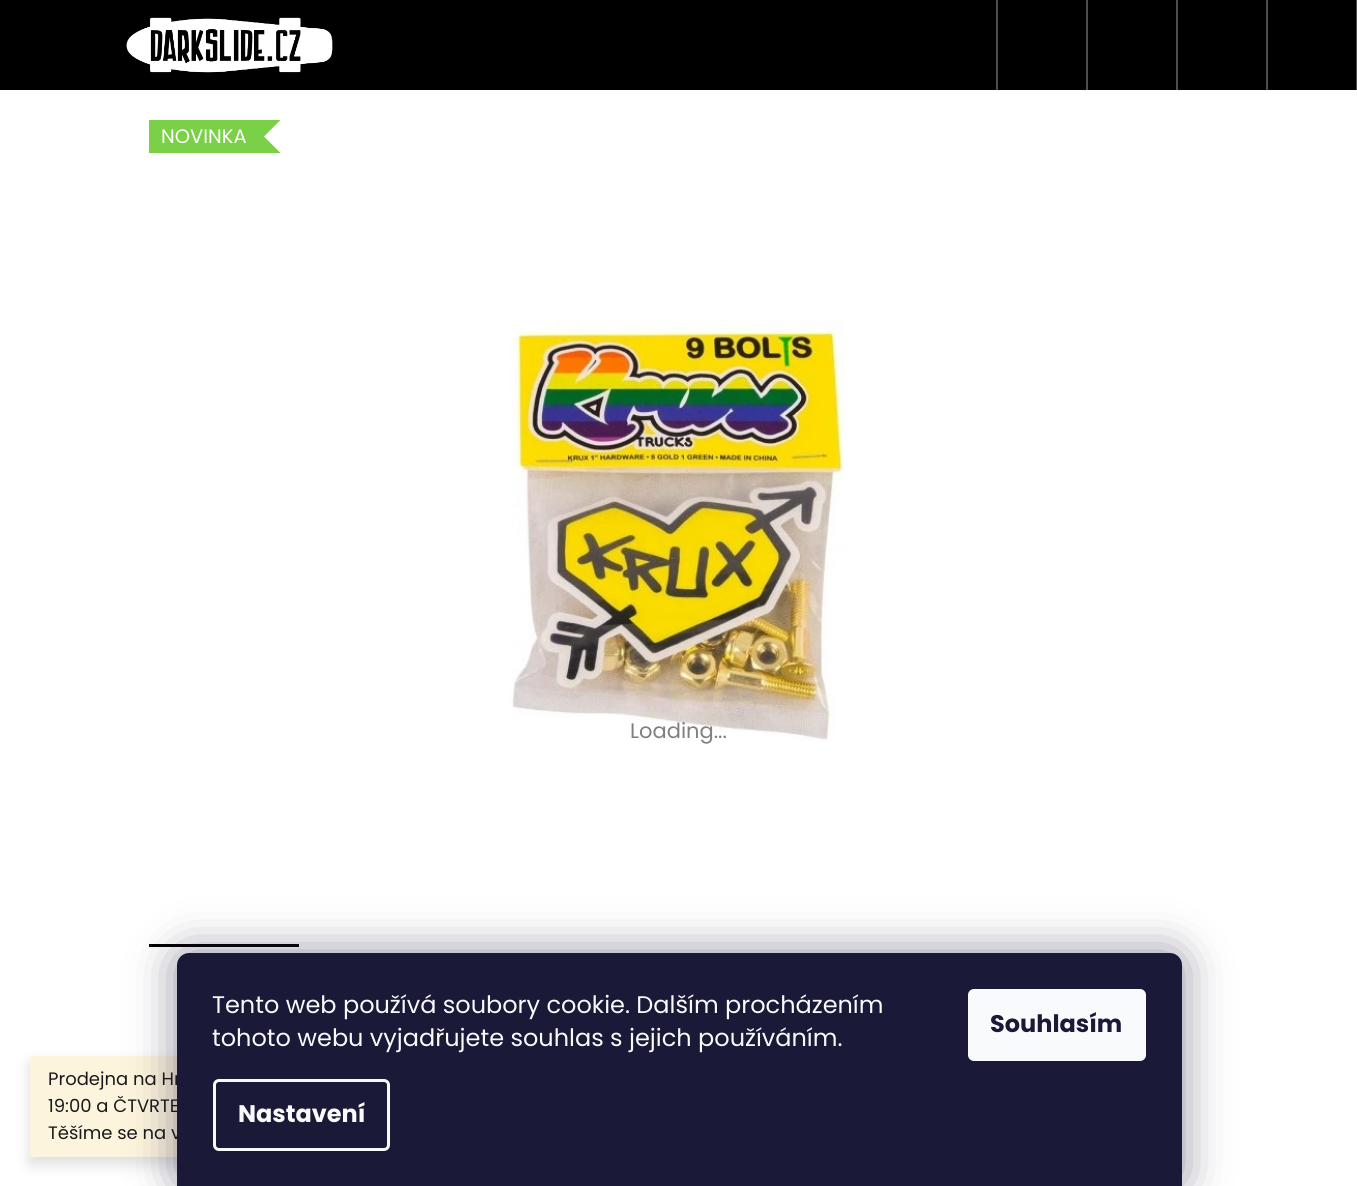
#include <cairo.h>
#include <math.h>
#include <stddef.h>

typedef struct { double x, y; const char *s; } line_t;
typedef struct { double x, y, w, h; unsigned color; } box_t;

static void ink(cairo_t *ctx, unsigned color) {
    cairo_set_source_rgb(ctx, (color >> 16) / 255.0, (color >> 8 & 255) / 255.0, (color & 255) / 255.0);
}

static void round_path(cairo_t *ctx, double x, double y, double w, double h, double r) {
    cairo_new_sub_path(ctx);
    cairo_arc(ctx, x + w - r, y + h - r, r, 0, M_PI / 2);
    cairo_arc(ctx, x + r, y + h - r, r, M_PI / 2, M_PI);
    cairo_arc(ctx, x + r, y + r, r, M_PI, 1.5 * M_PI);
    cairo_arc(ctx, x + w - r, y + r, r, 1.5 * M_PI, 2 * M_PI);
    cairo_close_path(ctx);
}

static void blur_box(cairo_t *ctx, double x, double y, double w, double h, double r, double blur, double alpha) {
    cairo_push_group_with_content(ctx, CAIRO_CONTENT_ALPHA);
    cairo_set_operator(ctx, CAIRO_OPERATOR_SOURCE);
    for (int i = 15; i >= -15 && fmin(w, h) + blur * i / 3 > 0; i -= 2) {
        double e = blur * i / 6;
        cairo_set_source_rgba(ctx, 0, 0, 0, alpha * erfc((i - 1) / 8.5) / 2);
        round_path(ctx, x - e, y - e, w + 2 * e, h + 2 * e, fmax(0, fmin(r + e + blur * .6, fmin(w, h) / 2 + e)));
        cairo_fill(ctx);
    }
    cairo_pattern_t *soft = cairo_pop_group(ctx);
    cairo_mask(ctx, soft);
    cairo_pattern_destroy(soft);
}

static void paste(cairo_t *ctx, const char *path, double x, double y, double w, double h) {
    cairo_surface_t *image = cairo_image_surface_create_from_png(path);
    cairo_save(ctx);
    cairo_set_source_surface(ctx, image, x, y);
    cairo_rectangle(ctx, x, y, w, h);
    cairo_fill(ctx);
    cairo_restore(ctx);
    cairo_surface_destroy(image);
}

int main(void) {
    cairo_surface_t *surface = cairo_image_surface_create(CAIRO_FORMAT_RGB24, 1357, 1186);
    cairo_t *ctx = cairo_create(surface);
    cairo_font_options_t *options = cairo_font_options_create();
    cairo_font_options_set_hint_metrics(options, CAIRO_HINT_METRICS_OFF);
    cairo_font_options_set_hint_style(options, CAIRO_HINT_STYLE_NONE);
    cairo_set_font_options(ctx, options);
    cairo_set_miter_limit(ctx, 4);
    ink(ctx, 0x000000);
    cairo_paint(ctx);
    paste(ctx, "media/1.png", 126, 17, 207, 56);
    {
        static const box_t items[] = {
            {1356, 0, 1, 90, 0x4D4D4D},
            {996, 0, 2, 90, 0x4D4D4D},
            {1086, 0, 2, 90, 0x4D4D4D},
            {1176, 0, 2, 90, 0x4D4D4D},
            {1266, 0, 2, 90, 0x4D4D4D},
            {0, 90, 1357, 1096, 0xFFFFFF},
            {149, 120, 114, 33, 0x7AD046},
        };
        for (size_t i = 0; i < sizeof items / sizeof *items; i++) {
            ink(ctx, items[i].color);
            cairo_rectangle(ctx, items[i].x, items[i].y, items[i].w, items[i].h);
            cairo_fill(ctx);
        }
    }
    cairo_select_font_face(ctx, "Poppins", CAIRO_FONT_SLANT_NORMAL, CAIRO_FONT_WEIGHT_NORMAL);
    cairo_set_font_size(ctx, 19.5);
    ink(ctx, 0xFFFFFF);
    cairo_move_to(ctx, 161, 143);
    cairo_show_text(ctx, "NOVINKA");
    ink(ctx, 0x7AD046);
    cairo_new_path(ctx);
    cairo_move_to(ctx, 244.5, 135);
    cairo_line_to(ctx, 262.5, 135);
    cairo_line_to(ctx, 280.5, 153);
    cairo_line_to(ctx, 262.5, 153);
    cairo_close_path(ctx);
    cairo_fill(ctx);
    cairo_new_path(ctx);
    cairo_move_to(ctx, 262.5, 120);
    cairo_line_to(ctx, 280.5, 120);
    cairo_line_to(ctx, 262.5, 138);
    cairo_line_to(ctx, 244.5, 138);
    cairo_close_path(ctx);
    cairo_fill(ctx);
    paste(ctx, "media/2.png", 509, 319, 336, 422);
    cairo_set_font_size(ctx, 21);
    ink(ctx, 0x7F7F7F);
    cairo_move_to(ctx, 630, 738);
    cairo_show_text(ctx, "Loading...");
    ink(ctx, 0x000000);
    cairo_rectangle(ctx, 149, 944, 150, 3);
    cairo_fill(ctx);
    cairo_save(ctx);
    cairo_set_fill_rule(ctx, CAIRO_FILL_RULE_EVEN_ODD);
    cairo_new_path(ctx);
    cairo_move_to(ctx, 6, 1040);
    cairo_line_to(ctx, 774, 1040);
    cairo_line_to(ctx, 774, 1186);
    cairo_line_to(ctx, 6, 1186);
    cairo_close_path(ctx);
    cairo_move_to(ctx, 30, 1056);
    cairo_line_to(ctx, 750, 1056);
    cairo_line_to(ctx, 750, 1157);
    cairo_line_to(ctx, 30, 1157);
    cairo_close_path(ctx);
    cairo_clip(ctx);
    ink(ctx, 0x000000);
    blur_box(ctx, 30, 1064, 720, 100, 0, 7.5, 0.14);
    cairo_restore(ctx);
    cairo_set_source_rgba(ctx, 0.992, 0.953, 0.855, 0.9);
    cairo_rectangle(ctx, 30, 1056, 147, 101);
    cairo_fill(ctx);
    cairo_set_font_size(ctx, 18);
    ink(ctx, 0x1A1A1A);
    {
        static const line_t items[] = {
            {48, 1085, "Prodejna na Hr"},
            {48, 1112, "19:00 a ČTVRTE"},
            {48, 1139, "Těšíme se na v"},
        };
        for (size_t i = 0; i < sizeof items / sizeof *items; i++) {
            cairo_move_to(ctx, items[i].x, items[i].y);
            cairo_show_text(ctx, items[i].s);
        }
    }
    ink(ctx, 0x1B1939);
    blur_box(ctx, 177, 953, 1005, 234, 12, 22.5, 0.5);
    ink(ctx, 0x1A1937);
    cairo_new_path(ctx);
    cairo_move_to(ctx, 189, 953);
    cairo_line_to(ctx, 1170, 953);
    cairo_curve_to(ctx, 1176.5, 953, 1182, 958.5, 1182, 965);
    cairo_line_to(ctx, 1182, 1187);
    cairo_line_to(ctx, 177, 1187);
    cairo_line_to(ctx, 177, 965);
    cairo_curve_to(ctx, 177, 958.5, 182.5, 953, 189, 953);
    cairo_close_path(ctx);
    cairo_fill(ctx);
    cairo_set_font_size(ctx, 24);
    ink(ctx, 0xF8FAFB);
    cairo_move_to(ctx, 212, 1013);
    cairo_show_text(ctx, "Tento web používá soubory cookie. Dalším procházením");
    cairo_move_to(ctx, 212, 1046);
    cairo_show_text(ctx, "tohoto webu vyjadřujete souhlas s jejich používáním.");
    round_path(ctx, 214.5, 1080.5, 174, 69, 4.5);
    cairo_set_line_width(ctx, 3);
    cairo_stroke(ctx);
    cairo_select_font_face(ctx, "Poppins", CAIRO_FONT_SLANT_NORMAL, CAIRO_FONT_WEIGHT_BOLD);
    cairo_move_to(ctx, 238, 1122);
    cairo_show_text(ctx, "Nastavení");
    round_path(ctx, 968, 989, 178, 72, 6);
    cairo_fill(ctx);
    ink(ctx, 0x1A1937);
    cairo_move_to(ctx, 990, 1032);
    cairo_show_text(ctx, "Souhlasím");
    cairo_surface_write_to_png(surface, "image.png");
    cairo_font_options_destroy(options);
    cairo_destroy(ctx);
    cairo_surface_destroy(surface);
    return 0;
}
